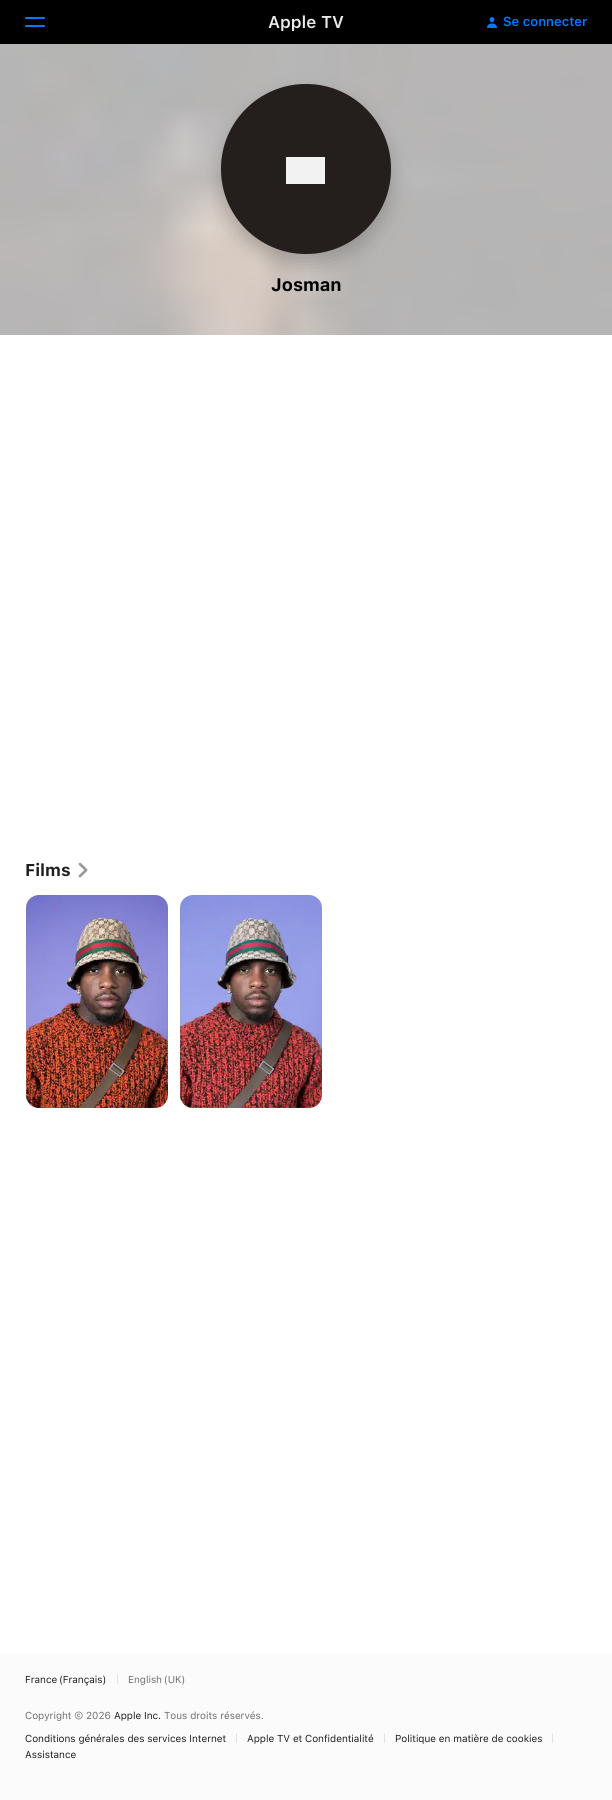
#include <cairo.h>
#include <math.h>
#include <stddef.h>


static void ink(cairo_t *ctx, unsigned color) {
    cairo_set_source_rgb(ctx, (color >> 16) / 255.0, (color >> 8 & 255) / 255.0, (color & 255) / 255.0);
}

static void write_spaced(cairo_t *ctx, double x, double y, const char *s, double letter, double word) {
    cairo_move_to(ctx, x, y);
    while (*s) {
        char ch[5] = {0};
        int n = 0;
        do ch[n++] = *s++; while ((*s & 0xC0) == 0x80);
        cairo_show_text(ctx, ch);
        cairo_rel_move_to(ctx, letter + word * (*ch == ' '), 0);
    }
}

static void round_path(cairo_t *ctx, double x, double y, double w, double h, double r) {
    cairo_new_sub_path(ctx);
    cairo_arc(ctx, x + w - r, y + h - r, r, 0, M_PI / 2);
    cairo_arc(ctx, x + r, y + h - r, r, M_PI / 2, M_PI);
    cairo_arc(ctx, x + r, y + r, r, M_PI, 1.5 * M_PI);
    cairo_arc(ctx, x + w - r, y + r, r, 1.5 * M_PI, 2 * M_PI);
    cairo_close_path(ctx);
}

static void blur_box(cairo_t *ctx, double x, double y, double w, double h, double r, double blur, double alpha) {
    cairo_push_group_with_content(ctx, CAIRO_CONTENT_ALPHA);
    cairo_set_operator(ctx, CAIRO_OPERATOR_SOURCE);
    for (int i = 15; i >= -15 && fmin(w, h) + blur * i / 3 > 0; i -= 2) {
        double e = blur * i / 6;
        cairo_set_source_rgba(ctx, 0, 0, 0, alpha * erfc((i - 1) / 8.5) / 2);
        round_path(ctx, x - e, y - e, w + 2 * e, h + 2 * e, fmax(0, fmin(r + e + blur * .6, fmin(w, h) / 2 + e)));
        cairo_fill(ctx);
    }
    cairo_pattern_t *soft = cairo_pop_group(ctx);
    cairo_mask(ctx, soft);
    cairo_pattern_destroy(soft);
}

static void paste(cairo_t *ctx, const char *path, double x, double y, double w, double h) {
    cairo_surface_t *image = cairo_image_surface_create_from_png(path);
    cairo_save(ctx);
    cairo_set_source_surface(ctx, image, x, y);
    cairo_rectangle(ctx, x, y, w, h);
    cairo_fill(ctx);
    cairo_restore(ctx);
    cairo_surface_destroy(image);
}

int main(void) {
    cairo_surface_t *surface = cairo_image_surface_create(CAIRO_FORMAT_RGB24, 612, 1800);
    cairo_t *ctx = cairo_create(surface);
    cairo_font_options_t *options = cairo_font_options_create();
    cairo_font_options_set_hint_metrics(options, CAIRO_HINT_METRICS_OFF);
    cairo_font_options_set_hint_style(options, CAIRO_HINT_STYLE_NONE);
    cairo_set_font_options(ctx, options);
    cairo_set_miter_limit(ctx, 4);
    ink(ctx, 0xFFFFFF);
    cairo_paint(ctx);
    ink(ctx, 0x000000);
    cairo_rectangle(ctx, 0, 0, 612, 44);
    cairo_fill(ctx);
    ink(ctx, 0x007AFF);
    round_path(ctx, 25, 17, 20, 2, 1);
    cairo_fill(ctx);
    round_path(ctx, 25, 25, 20, 2, 1);
    cairo_fill(ctx);
    cairo_select_font_face(ctx, "SF SemiBold", CAIRO_FONT_SLANT_NORMAL, CAIRO_FONT_WEIGHT_NORMAL);
    cairo_set_font_size(ctx, 17);
    ink(ctx, 0xEBEBEB);
    cairo_move_to(ctx, 268, 28);
    cairo_show_text(ctx, "Apple TV");
    paste(ctx, "media/1.png", 487, 17, 10, 11);
    cairo_set_font_size(ctx, 13);
    ink(ctx, 0x007AFF);
    cairo_move_to(ctx, 503, 26);
    cairo_show_text(ctx, "Se connecter");
    paste(ctx, "media/2.png", 0, 44, 612, 291);
    ink(ctx, 0x000000);
    blur_box(ctx, 221, 94, 170, 170, 85, 10, 0.2);
    cairo_arc(ctx, 306, 169, 84.5, 0, 2 * M_PI);
    cairo_set_source_rgba(ctx, 0, 0, 0, 0.08);
    cairo_set_line_width(ctx, 1);
    cairo_stroke(ctx);
    ink(ctx, 0x1B1412);
    cairo_arc(ctx, 306, 169, 85, 0, 2 * M_PI);
    cairo_fill(ctx);
    ink(ctx, 0xFFFFFF);
    cairo_rectangle(ctx, 286, 157, 39, 27);
    cairo_fill(ctx);
    cairo_set_source_rgba(ctx, 0.502, 0.502, 0.502, 0.1);
    cairo_new_path(ctx);
    cairo_move_to(ctx, 306, 84);
    cairo_curve_to(ctx, 353, 84, 391, 122, 391, 169);
    cairo_curve_to(ctx, 391, 216, 353, 254, 306, 254);
    cairo_curve_to(ctx, 259, 254, 221, 216, 221, 169);
    cairo_curve_to(ctx, 221, 122, 259, 84, 306, 84);
    cairo_close_path(ctx);
    cairo_fill(ctx);
    cairo_select_font_face(ctx, "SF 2", CAIRO_FONT_SLANT_NORMAL, CAIRO_FONT_WEIGHT_BOLD);
    cairo_set_font_size(ctx, 18);
    ink(ctx, 0x000000);
    cairo_move_to(ctx, 271, 291);
    cairo_show_text(ctx, "Josman");
    cairo_select_font_face(ctx, "SF", CAIRO_FONT_SLANT_NORMAL, CAIRO_FONT_WEIGHT_BOLD);
    cairo_set_font_size(ctx, 17);
    ink(ctx, 0x1E1E1E);
    cairo_move_to(ctx, 25, 876);
    cairo_show_text(ctx, "Films");
    paste(ctx, "media/3.png", 78, 862, 10, 16);
    paste(ctx, "media/4.png", 26, 895, 142, 213);
    cairo_set_source_rgba(ctx, 0.502, 0.502, 0.502, 0.1);
    cairo_set_fill_rule(ctx, CAIRO_FILL_RULE_EVEN_ODD);
    cairo_new_path(ctx);
    cairo_move_to(ctx, 26, 908);
    cairo_line_to(ctx, 26, 1095);
    cairo_line_to(ctx, 27, 1100);
    cairo_line_to(ctx, 27, 903);
    cairo_close_path(ctx);
    cairo_move_to(ctx, 39, 895);
    cairo_line_to(ctx, 34, 896);
    cairo_line_to(ctx, 160, 896);
    cairo_line_to(ctx, 155, 895);
    cairo_close_path(ctx);
    cairo_move_to(ctx, 168, 908);
    cairo_line_to(ctx, 167, 903);
    cairo_line_to(ctx, 167, 1100);
    cairo_line_to(ctx, 168, 1095);
    cairo_close_path(ctx);
    cairo_move_to(ctx, 155, 1108);
    cairo_line_to(ctx, 160, 1107);
    cairo_line_to(ctx, 34, 1107);
    cairo_line_to(ctx, 39, 1108);
    cairo_close_path(ctx);
    cairo_fill(ctx);
    paste(ctx, "media/5.png", 180, 895, 142, 213);
    cairo_new_path(ctx);
    cairo_move_to(ctx, 180, 908);
    cairo_line_to(ctx, 180, 1095);
    cairo_line_to(ctx, 181, 1100);
    cairo_line_to(ctx, 181, 903);
    cairo_close_path(ctx);
    cairo_move_to(ctx, 193, 895);
    cairo_line_to(ctx, 188, 896);
    cairo_line_to(ctx, 314, 896);
    cairo_line_to(ctx, 309, 895);
    cairo_close_path(ctx);
    cairo_move_to(ctx, 322, 908);
    cairo_line_to(ctx, 321, 903);
    cairo_line_to(ctx, 321, 1100);
    cairo_line_to(ctx, 322, 1095);
    cairo_close_path(ctx);
    cairo_move_to(ctx, 309, 1108);
    cairo_line_to(ctx, 314, 1107);
    cairo_line_to(ctx, 188, 1107);
    cairo_line_to(ctx, 193, 1108);
    cairo_close_path(ctx);
    cairo_fill(ctx);
    ink(ctx, 0xFBFBFB);
    cairo_rectangle(ctx, 0, 1653, 612, 147);
    cairo_fill(ctx);
    cairo_select_font_face(ctx, "SF", CAIRO_FONT_SLANT_NORMAL, CAIRO_FONT_WEIGHT_NORMAL);
    cairo_set_font_size(ctx, 10);
    ink(ctx, 0x1E1E1E);
    write_spaced(ctx, 25, 1683, "France (Français)", 0, -1);
    ink(ctx, 0xE2E2E2);
    cairo_rectangle(ctx, 117, 1674, 1, 10);
    cairo_fill(ctx);
    ink(ctx, 0x6E6E6E);
    write_spaced(ctx, 128, 1683, "English (UK)", 0, -1);
    cairo_move_to(ctx, 25, 1719);
    cairo_show_text(ctx, "Copyright © 2026");
    ink(ctx, 0x1E1E1E);
    cairo_move_to(ctx, 114, 1719);
    cairo_show_text(ctx, "Apple Inc.");
    ink(ctx, 0x6E6E6E);
    cairo_move_to(ctx, 164, 1719);
    cairo_show_text(ctx, "Tous droits réservés.");
    ink(ctx, 0x1E1E1E);
    cairo_move_to(ctx, 25, 1742);
    cairo_show_text(ctx, "Conditions générales des services Internet");
    ink(ctx, 0xE2E2E2);
    cairo_rectangle(ctx, 236, 1733, 1, 10);
    cairo_fill(ctx);
    ink(ctx, 0x1E1E1E);
    cairo_move_to(ctx, 247, 1742);
    cairo_show_text(ctx, "Apple TV et Confidentialité");
    ink(ctx, 0xE2E2E2);
    cairo_rectangle(ctx, 384, 1733, 1, 10);
    cairo_fill(ctx);
    ink(ctx, 0x1E1E1E);
    cairo_move_to(ctx, 395, 1742);
    cairo_show_text(ctx, "Politique en matière de cookies");
    ink(ctx, 0xE2E2E2);
    cairo_rectangle(ctx, 552, 1733, 1, 10);
    cairo_fill(ctx);
    ink(ctx, 0x1E1E1E);
    cairo_move_to(ctx, 25, 1758);
    cairo_show_text(ctx, "Assistance");
    cairo_surface_write_to_png(surface, "image.png");
    cairo_font_options_destroy(options);
    cairo_destroy(ctx);
    cairo_surface_destroy(surface);
    return 0;
}
